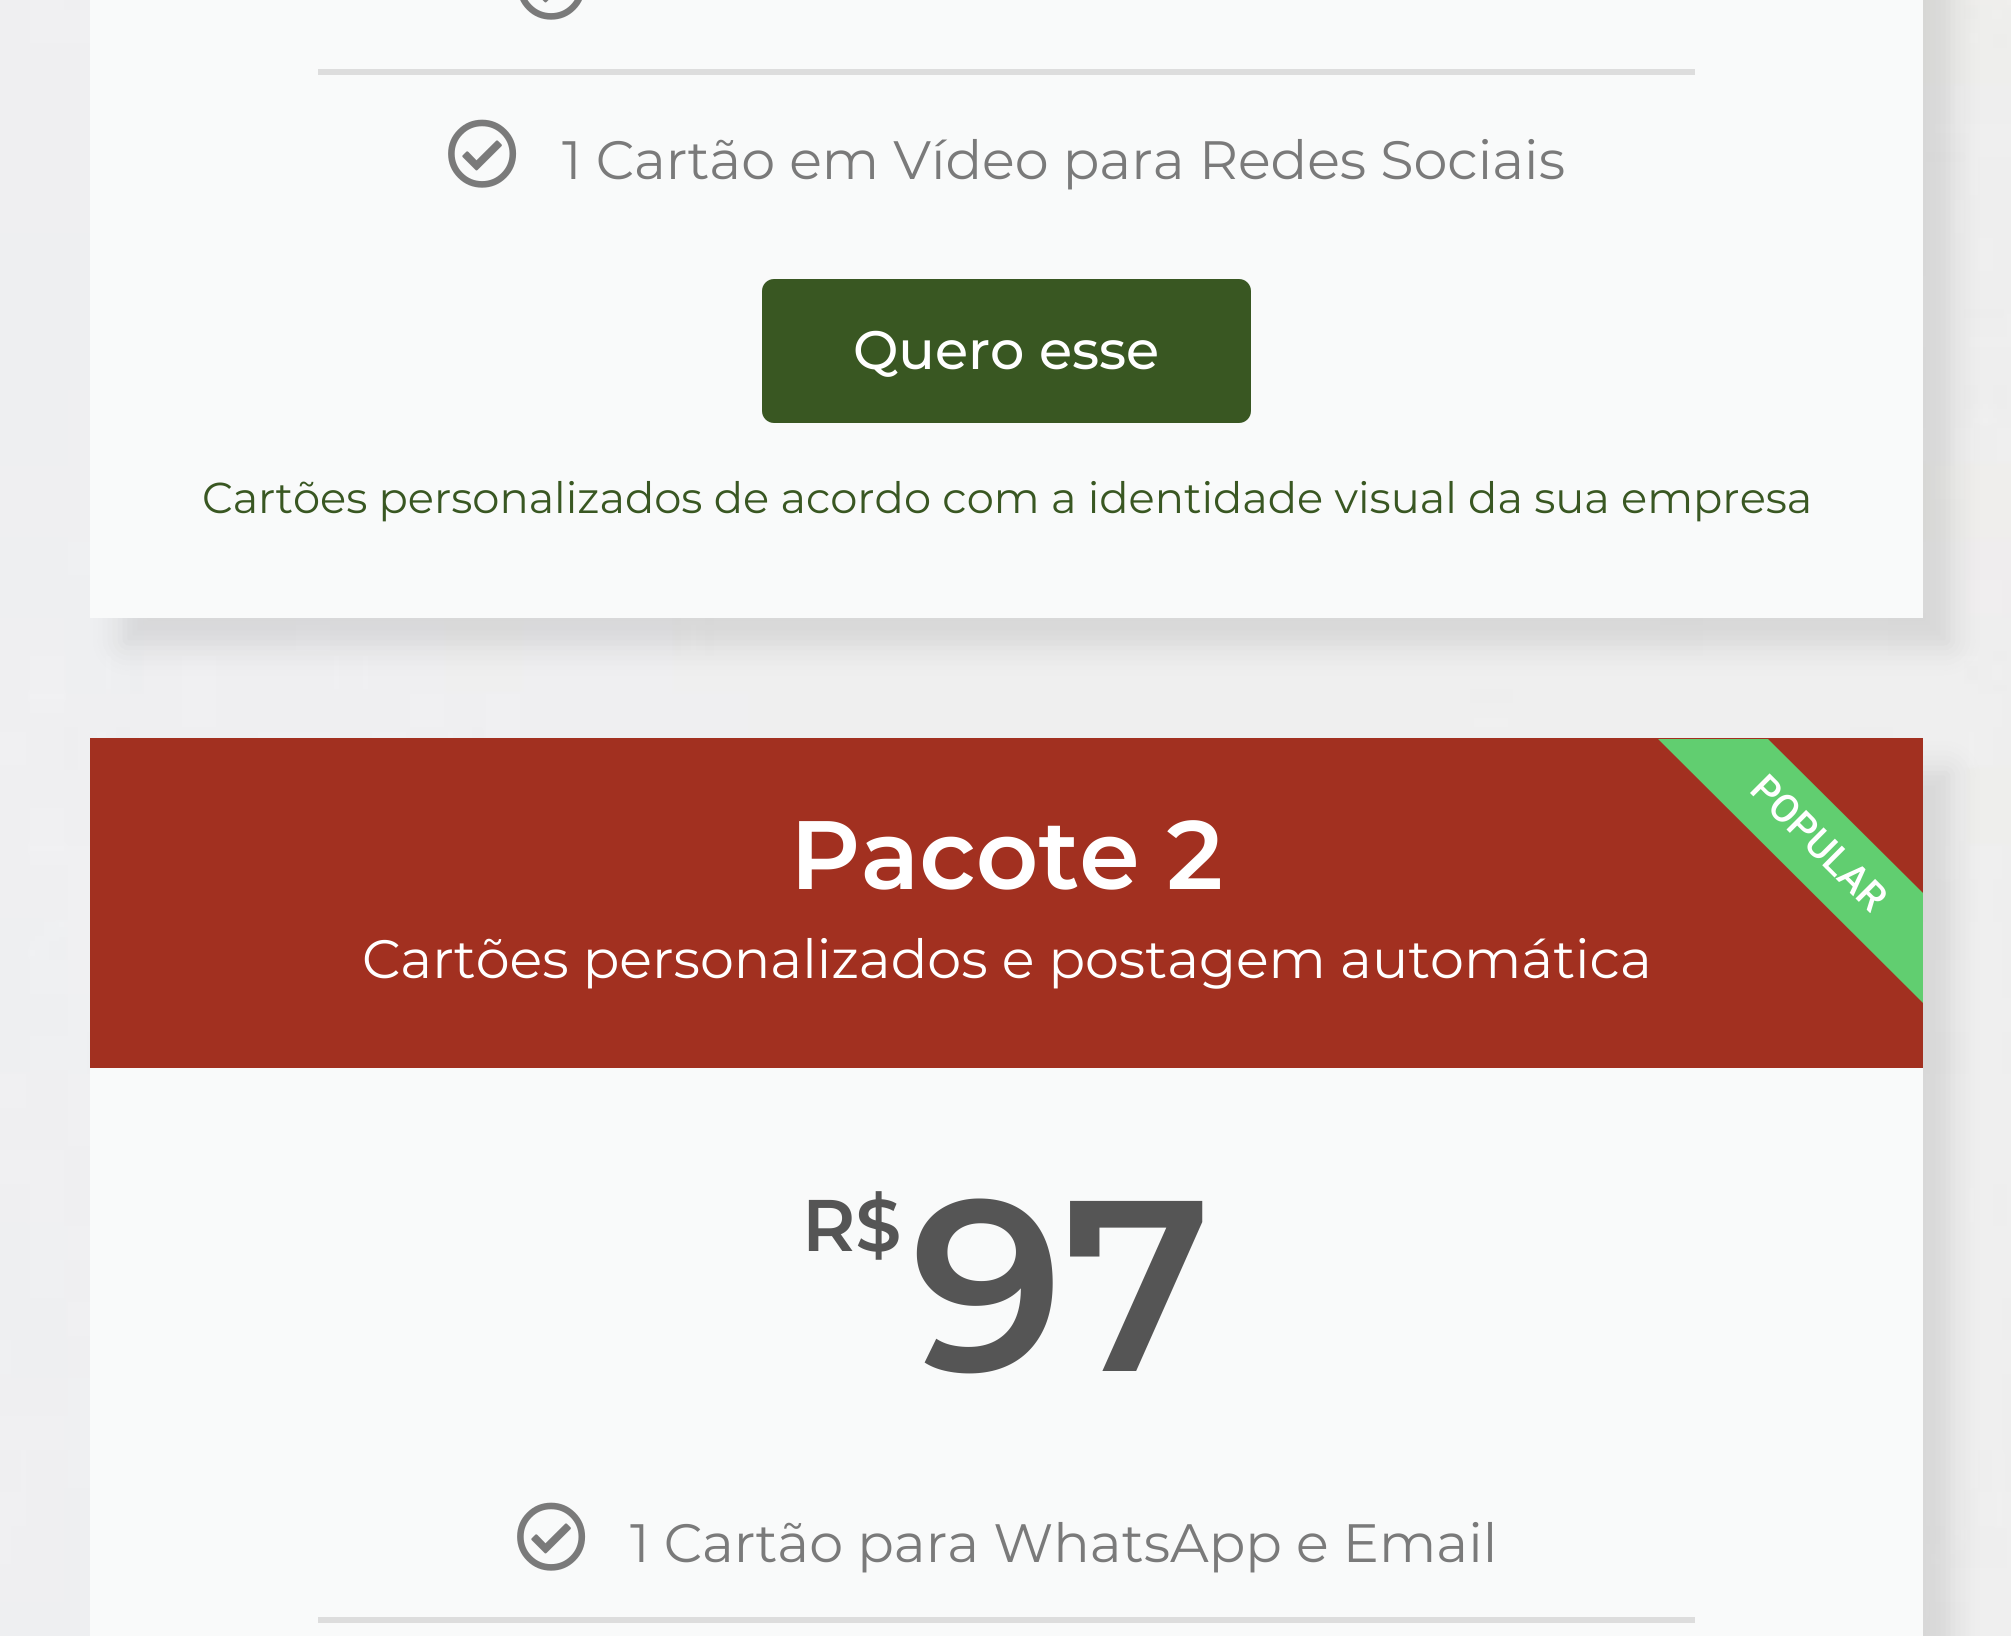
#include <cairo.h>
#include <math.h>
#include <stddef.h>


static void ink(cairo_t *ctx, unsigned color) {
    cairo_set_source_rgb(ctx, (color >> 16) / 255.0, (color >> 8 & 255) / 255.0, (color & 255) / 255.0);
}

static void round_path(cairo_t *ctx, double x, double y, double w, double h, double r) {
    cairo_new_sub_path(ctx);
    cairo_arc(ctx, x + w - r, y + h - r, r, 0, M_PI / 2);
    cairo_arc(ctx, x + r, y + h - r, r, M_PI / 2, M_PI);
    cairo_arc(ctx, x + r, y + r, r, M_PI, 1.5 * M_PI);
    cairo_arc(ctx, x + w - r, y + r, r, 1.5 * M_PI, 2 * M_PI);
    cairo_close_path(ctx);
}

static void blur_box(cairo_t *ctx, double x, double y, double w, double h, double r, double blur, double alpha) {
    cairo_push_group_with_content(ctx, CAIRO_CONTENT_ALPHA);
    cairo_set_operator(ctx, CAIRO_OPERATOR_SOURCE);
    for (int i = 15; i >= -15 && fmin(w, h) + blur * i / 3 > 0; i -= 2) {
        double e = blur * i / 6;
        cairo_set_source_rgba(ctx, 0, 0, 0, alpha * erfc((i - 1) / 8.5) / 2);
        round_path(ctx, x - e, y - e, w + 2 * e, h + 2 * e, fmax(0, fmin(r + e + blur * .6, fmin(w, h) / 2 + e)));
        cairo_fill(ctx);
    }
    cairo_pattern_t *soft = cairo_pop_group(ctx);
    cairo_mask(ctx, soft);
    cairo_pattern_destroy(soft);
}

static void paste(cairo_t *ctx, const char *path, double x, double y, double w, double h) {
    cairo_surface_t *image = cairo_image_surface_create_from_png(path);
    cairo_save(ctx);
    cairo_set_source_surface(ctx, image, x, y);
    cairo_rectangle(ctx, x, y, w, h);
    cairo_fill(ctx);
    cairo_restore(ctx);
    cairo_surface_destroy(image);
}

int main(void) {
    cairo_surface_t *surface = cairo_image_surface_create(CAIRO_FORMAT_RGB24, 2011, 1636);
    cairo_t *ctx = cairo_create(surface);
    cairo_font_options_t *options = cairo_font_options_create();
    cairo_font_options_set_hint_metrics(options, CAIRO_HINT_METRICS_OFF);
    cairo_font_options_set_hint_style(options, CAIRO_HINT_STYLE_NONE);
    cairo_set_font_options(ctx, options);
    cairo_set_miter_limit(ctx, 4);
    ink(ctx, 0xFFFFFF);
    cairo_paint(ctx);
    paste(ctx, "media/1.png", 0, 0, 2011, 1636);
    ink(ctx, 0x000000);
    blur_box(ctx, 120, -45, 1833, 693, 0, 15, 0.1);
    ink(ctx, 0xF9FAFA);
    cairo_rectangle(ctx, 90, 0, 1833, 618);
    cairo_fill(ctx);
    paste(ctx, "media/2.png", 520, 0, 62, 20);
    ink(ctx, 0xDDDDDD);
    cairo_rectangle(ctx, 318, 69, 1377, 6);
    cairo_fill(ctx);
    paste(ctx, "media/3.png", 448, 119, 69, 69);
    cairo_select_font_face(ctx, "Montserrat", CAIRO_FONT_SLANT_NORMAL, CAIRO_FONT_WEIGHT_NORMAL);
    cairo_set_font_size(ctx, 54);
    ink(ctx, 0x7A7A7A);
    cairo_move_to(ctx, 562, 179);
    cairo_show_text(ctx, "1 Cartão em Vídeo para Redes Sociais");
    ink(ctx, 0x395722);
    round_path(ctx, 762, 279, 489, 144, 12);
    cairo_fill(ctx);
    cairo_select_font_face(ctx, "Montserrat Medium", CAIRO_FONT_SLANT_NORMAL, CAIRO_FONT_WEIGHT_NORMAL);
    ink(ctx, 0xFFFFFF);
    cairo_move_to(ctx, 853, 369);
    cairo_show_text(ctx, "Quero esse");
    cairo_select_font_face(ctx, "Montserrat", CAIRO_FONT_SLANT_NORMAL, CAIRO_FONT_WEIGHT_NORMAL);
    cairo_set_font_size(ctx, 43.2);
    ink(ctx, 0x395722);
    cairo_move_to(ctx, 202, 513);
    cairo_show_text(ctx, "Cartões personalizados de acordo com a identidade visual da sua empresa");
    ink(ctx, 0x000000);
    blur_box(ctx, 120, 768, 1833, 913, 0, 15, 0.1);
    ink(ctx, 0xF9FAFA);
    cairo_rectangle(ctx, 90, 1068, 1833, 568);
    cairo_fill(ctx);
    ink(ctx, 0xA23020);
    cairo_rectangle(ctx, 90, 738, 1833, 330);
    cairo_fill(ctx);
    cairo_select_font_face(ctx, "Montserrat SemiBold", CAIRO_FONT_SLANT_NORMAL, CAIRO_FONT_WEIGHT_NORMAL);
    cairo_set_font_size(ctx, 97);
    ink(ctx, 0xFFFFFF);
    cairo_move_to(ctx, 790, 889);
    cairo_show_text(ctx, "Pacote 2");
    cairo_select_font_face(ctx, "Montserrat", CAIRO_FONT_SLANT_NORMAL, CAIRO_FONT_WEIGHT_NORMAL);
    cairo_set_font_size(ctx, 54);
    cairo_move_to(ctx, 362, 978);
    cairo_show_text(ctx, "Cartões personalizados e postagem automática");
    cairo_select_font_face(ctx, "Montserrat SemiBold", CAIRO_FONT_SLANT_NORMAL, CAIRO_FONT_WEIGHT_NORMAL);
    cairo_set_font_size(ctx, 73);
    ink(ctx, 0x555555);
    cairo_move_to(ctx, 802, 1251);
    cairo_show_text(ctx, "R$");
    cairo_set_font_size(ctx, 243);
    cairo_move_to(ctx, 911, 1371);
    cairo_show_text(ctx, "97");
    paste(ctx, "media/3.png", 517, 1502, 69, 69);
    cairo_select_font_face(ctx, "Montserrat", CAIRO_FONT_SLANT_NORMAL, CAIRO_FONT_WEIGHT_NORMAL);
    cairo_set_font_size(ctx, 54);
    ink(ctx, 0x7A7A7A);
    cairo_move_to(ctx, 630, 1562);
    cairo_show_text(ctx, "1 Cartão para WhatsApp e Email");
    ink(ctx, 0xDDDDDD);
    cairo_rectangle(ctx, 318, 1617, 1377, 6);
    cairo_fill(ctx);
    ink(ctx, 0x61CE70);
    cairo_new_path(ctx);
    cairo_move_to(ctx, 1923, 1003);
    cairo_line_to(ctx, 1658, 739);
    cairo_line_to(ctx, 1768, 739);
    cairo_line_to(ctx, 1923, 893);
    cairo_close_path(ctx);
    cairo_fill(ctx);
    cairo_select_font_face(ctx, "Roboto Medium", CAIRO_FONT_SLANT_NORMAL, CAIRO_FONT_WEIGHT_NORMAL);
    cairo_set_font_size(ctx, 39);
    ink(ctx, 0xFFFFFF);
    cairo_save(ctx);
    cairo_translate(ctx, 1748, 791);
    cairo_rotate(ctx, 45 * M_PI / 180);
    cairo_move_to(ctx, 0, 0);
    cairo_show_text(ctx, "POPULAR");
    cairo_restore(ctx);
    cairo_surface_write_to_png(surface, "image.png");
    cairo_font_options_destroy(options);
    cairo_destroy(ctx);
    cairo_surface_destroy(surface);
    return 0;
}
